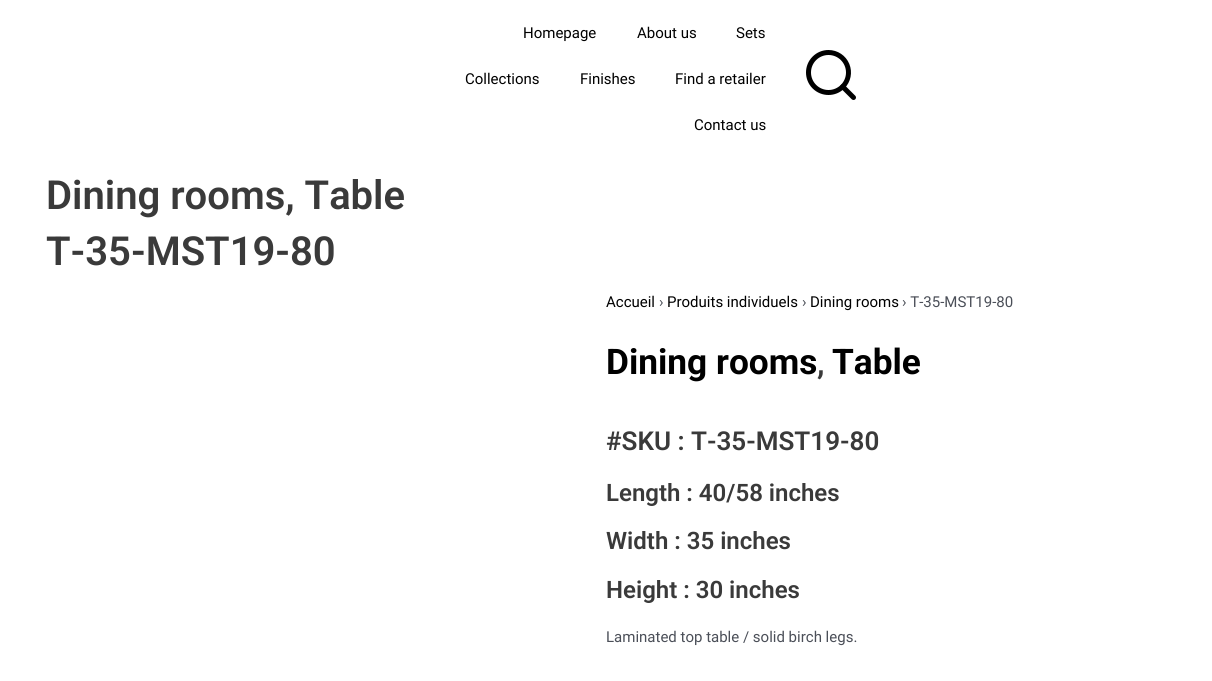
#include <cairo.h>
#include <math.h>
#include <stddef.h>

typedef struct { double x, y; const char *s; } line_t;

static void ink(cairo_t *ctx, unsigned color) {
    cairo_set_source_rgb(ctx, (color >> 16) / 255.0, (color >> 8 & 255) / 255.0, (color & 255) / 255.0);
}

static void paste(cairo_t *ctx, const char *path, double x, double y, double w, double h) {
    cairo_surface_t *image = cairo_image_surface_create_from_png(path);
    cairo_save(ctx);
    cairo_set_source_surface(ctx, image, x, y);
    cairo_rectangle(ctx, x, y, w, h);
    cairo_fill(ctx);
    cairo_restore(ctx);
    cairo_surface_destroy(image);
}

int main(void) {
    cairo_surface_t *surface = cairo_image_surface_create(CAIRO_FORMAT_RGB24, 1212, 681);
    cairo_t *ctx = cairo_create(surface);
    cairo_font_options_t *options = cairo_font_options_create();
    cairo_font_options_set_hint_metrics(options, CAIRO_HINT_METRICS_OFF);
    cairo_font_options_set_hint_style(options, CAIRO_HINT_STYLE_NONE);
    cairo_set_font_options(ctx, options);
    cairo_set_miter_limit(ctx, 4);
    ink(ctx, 0xFFFFFF);
    cairo_paint(ctx);
    cairo_select_font_face(ctx, "Roboto", CAIRO_FONT_SLANT_NORMAL, CAIRO_FONT_WEIGHT_NORMAL);
    cairo_set_font_size(ctx, 15);
    ink(ctx, 0x000000);
    {
        static const line_t items[] = {
            {523, 38, "Homepage"},
            {637, 38, "About us"},
            {736, 38, "Sets"},
            {465, 84, "Collections"},
            {580, 84, "Finishes"},
            {675, 84, "Find a retailer"},
            {694, 130, "Contact us"},
        };
        for (size_t i = 0; i < sizeof items / sizeof *items; i++) {
            cairo_move_to(ctx, items[i].x, items[i].y);
            cairo_show_text(ctx, items[i].s);
        }
    }
    paste(ctx, "media/1.png", 806, 50, 50, 50);
    cairo_select_font_face(ctx, "Roboto SemiBold", CAIRO_FONT_SLANT_NORMAL, CAIRO_FONT_WEIGHT_NORMAL);
    cairo_set_font_size(ctx, 40);
    ink(ctx, 0x3A3A3A);
    cairo_move_to(ctx, 46, 209);
    cairo_show_text(ctx, "Dining rooms, Table");
    cairo_move_to(ctx, 46, 265);
    cairo_show_text(ctx, "T-35-MST19-80");
    cairo_select_font_face(ctx, "Roboto", CAIRO_FONT_SLANT_NORMAL, CAIRO_FONT_WEIGHT_NORMAL);
    cairo_set_font_size(ctx, 15);
    ink(ctx, 0x000000);
    cairo_move_to(ctx, 606, 307);
    cairo_show_text(ctx, "Accueil");
    ink(ctx, 0x4B4F58);
    cairo_move_to(ctx, 659, 307);
    cairo_show_text(ctx, "›");
    ink(ctx, 0x000000);
    cairo_move_to(ctx, 667, 307);
    cairo_show_text(ctx, "Produits individuels");
    ink(ctx, 0x4B4F58);
    cairo_move_to(ctx, 802, 307);
    cairo_show_text(ctx, "›");
    ink(ctx, 0x000000);
    cairo_move_to(ctx, 810, 307);
    cairo_show_text(ctx, "Dining rooms");
    ink(ctx, 0x4B4F58);
    cairo_move_to(ctx, 902, 307);
    cairo_show_text(ctx, "› T-35-MST19-80");
    cairo_select_font_face(ctx, "Roboto", CAIRO_FONT_SLANT_NORMAL, CAIRO_FONT_WEIGHT_BOLD);
    cairo_set_font_size(ctx, 35.25);
    ink(ctx, 0x000000);
    cairo_move_to(ctx, 606, 374);
    cairo_show_text(ctx, "Dining rooms");
    cairo_select_font_face(ctx, "Roboto SemiBold", CAIRO_FONT_SLANT_NORMAL, CAIRO_FONT_WEIGHT_NORMAL);
    cairo_set_font_size(ctx, 32);
    ink(ctx, 0x3A3A3A);
    cairo_move_to(ctx, 817, 374);
    cairo_show_text(ctx, ",");
    cairo_select_font_face(ctx, "Roboto", CAIRO_FONT_SLANT_NORMAL, CAIRO_FONT_WEIGHT_BOLD);
    cairo_set_font_size(ctx, 35.25);
    ink(ctx, 0x000000);
    cairo_move_to(ctx, 832, 374);
    cairo_show_text(ctx, "Table");
    cairo_select_font_face(ctx, "Roboto SemiBold", CAIRO_FONT_SLANT_NORMAL, CAIRO_FONT_WEIGHT_NORMAL);
    cairo_set_font_size(ctx, 26);
    ink(ctx, 0x3A3A3A);
    cairo_move_to(ctx, 606, 450);
    cairo_show_text(ctx, "#SKU : T-35-MST19-80");
    cairo_set_font_size(ctx, 24);
    {
        static const line_t items[] = {
            {606, 501, "Length : 40/58 inches"},
            {606, 549, "Width : 35 inches"},
            {606, 598, "Height : 30 inches"},
        };
        for (size_t i = 0; i < sizeof items / sizeof *items; i++) {
            cairo_move_to(ctx, items[i].x, items[i].y);
            cairo_show_text(ctx, items[i].s);
        }
    }
    cairo_select_font_face(ctx, "Roboto", CAIRO_FONT_SLANT_NORMAL, CAIRO_FONT_WEIGHT_NORMAL);
    cairo_set_font_size(ctx, 15);
    ink(ctx, 0x4B4F58);
    cairo_move_to(ctx, 606, 642);
    cairo_show_text(ctx, "Laminated top table / solid birch legs.");
    cairo_surface_write_to_png(surface, "image.png");
    cairo_font_options_destroy(options);
    cairo_destroy(ctx);
    cairo_surface_destroy(surface);
    return 0;
}
